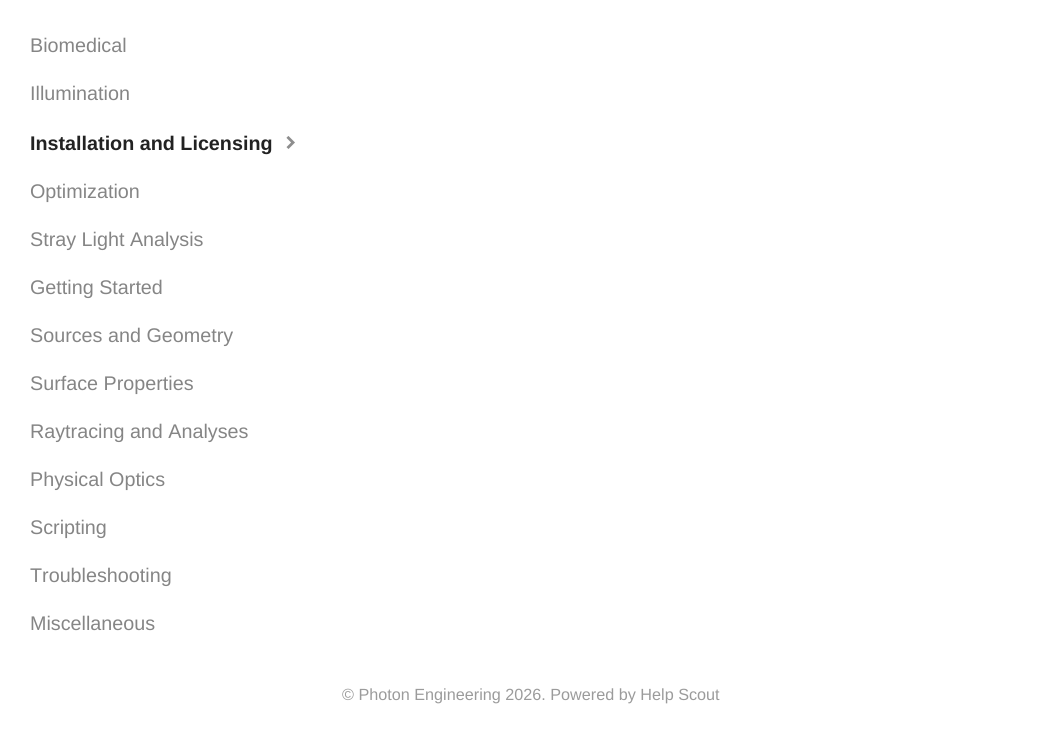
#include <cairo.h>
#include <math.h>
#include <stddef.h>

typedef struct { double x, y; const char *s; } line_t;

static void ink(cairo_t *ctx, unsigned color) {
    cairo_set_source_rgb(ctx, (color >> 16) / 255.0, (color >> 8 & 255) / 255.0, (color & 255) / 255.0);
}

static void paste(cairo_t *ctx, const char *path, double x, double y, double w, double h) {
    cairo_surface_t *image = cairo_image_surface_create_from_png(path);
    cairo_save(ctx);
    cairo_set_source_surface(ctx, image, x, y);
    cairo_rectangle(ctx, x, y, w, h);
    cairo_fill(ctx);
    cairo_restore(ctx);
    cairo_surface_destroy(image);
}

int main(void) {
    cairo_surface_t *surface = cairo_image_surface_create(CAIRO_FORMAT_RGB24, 1062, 756);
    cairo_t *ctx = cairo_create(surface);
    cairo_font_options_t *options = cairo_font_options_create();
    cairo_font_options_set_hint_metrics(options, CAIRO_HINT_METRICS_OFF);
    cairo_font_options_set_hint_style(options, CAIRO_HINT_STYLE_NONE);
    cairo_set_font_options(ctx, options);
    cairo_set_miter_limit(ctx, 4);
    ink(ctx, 0xFFFFFF);
    cairo_paint(ctx);
    cairo_select_font_face(ctx, "Liberation Sans", CAIRO_FONT_SLANT_NORMAL, CAIRO_FONT_WEIGHT_NORMAL);
    cairo_set_font_size(ctx, 19.75);
    ink(ctx, 0x858585);
    cairo_move_to(ctx, 30, 52);
    cairo_show_text(ctx, "Biomedical");
    cairo_move_to(ctx, 30, 100);
    cairo_show_text(ctx, "Illumination");
    cairo_select_font_face(ctx, "Liberation Sans", CAIRO_FONT_SLANT_NORMAL, CAIRO_FONT_WEIGHT_BOLD);
    ink(ctx, 0x222222);
    cairo_move_to(ctx, 30, 150);
    cairo_show_text(ctx, "Installation and Licensing");
    paste(ctx, "media/1.png", 286, 136, 9, 13);
    cairo_select_font_face(ctx, "Liberation Sans", CAIRO_FONT_SLANT_NORMAL, CAIRO_FONT_WEIGHT_NORMAL);
    ink(ctx, 0x858585);
    {
        static const line_t items[] = {
            {30, 198, "Optimization"},
            {30, 246, "Stray Light Analysis"},
            {30, 294, "Getting Started"},
            {30, 342, "Sources and Geometry"},
            {30, 390, "Surface Properties"},
            {30, 438, "Raytracing and Analyses"},
            {30, 486, "Physical Optics"},
            {30, 534, "Scripting"},
            {30, 582, "Troubleshooting"},
            {30, 630, "Miscellaneous"},
        };
        for (size_t i = 0; i < sizeof items / sizeof *items; i++) {
            cairo_move_to(ctx, items[i].x, items[i].y);
            cairo_show_text(ctx, items[i].s);
        }
    }
    cairo_set_font_size(ctx, 16.2);
    ink(ctx, 0x9B9B9B);
    cairo_move_to(ctx, 342, 700);
    cairo_show_text(ctx, "© Photon Engineering 2026. Powered by Help Scout");
    cairo_surface_write_to_png(surface, "image.png");
    cairo_font_options_destroy(options);
    cairo_destroy(ctx);
    cairo_surface_destroy(surface);
    return 0;
}
